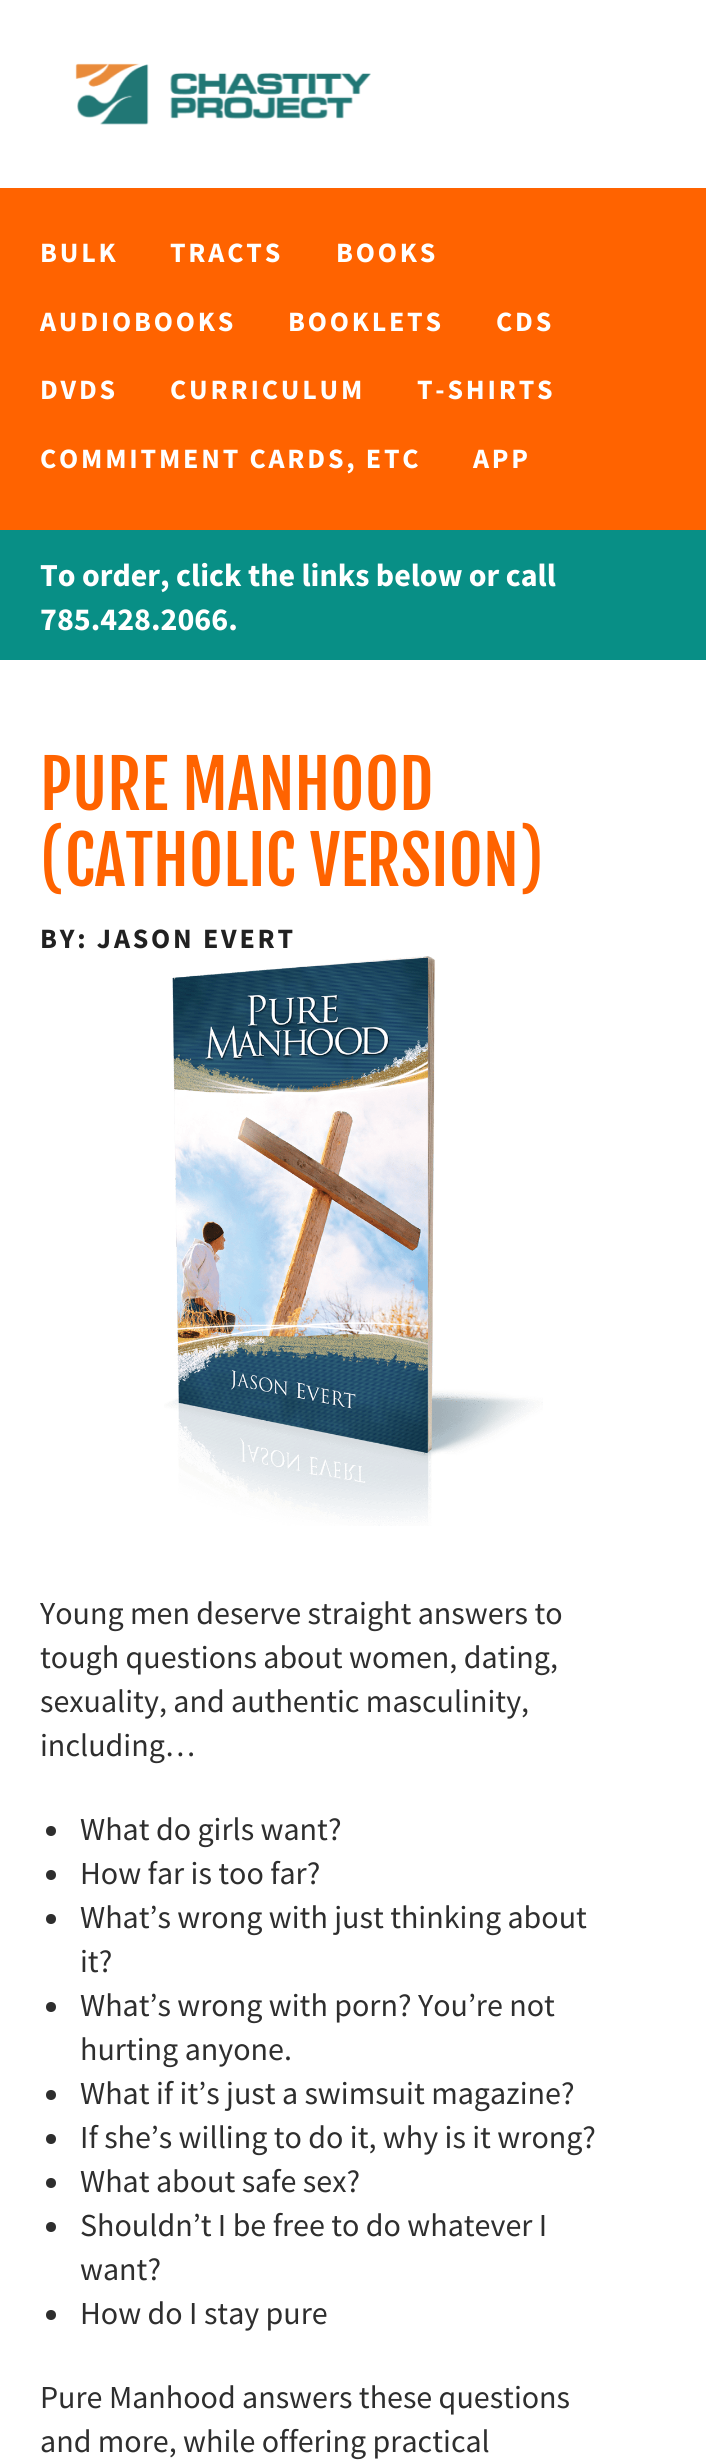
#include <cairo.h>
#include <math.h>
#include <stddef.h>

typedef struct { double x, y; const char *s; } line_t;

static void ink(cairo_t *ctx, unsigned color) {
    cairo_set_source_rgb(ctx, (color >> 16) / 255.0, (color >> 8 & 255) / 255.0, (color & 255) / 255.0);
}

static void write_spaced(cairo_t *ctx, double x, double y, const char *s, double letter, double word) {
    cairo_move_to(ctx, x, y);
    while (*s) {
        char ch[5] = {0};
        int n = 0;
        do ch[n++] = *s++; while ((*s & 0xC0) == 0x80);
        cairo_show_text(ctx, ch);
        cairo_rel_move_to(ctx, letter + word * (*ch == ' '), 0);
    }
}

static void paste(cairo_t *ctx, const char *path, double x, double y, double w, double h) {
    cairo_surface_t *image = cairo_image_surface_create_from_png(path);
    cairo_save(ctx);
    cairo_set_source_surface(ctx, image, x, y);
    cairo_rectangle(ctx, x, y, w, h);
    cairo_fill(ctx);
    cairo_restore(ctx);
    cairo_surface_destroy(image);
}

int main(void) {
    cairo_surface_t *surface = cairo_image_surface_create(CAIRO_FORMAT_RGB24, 706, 2461);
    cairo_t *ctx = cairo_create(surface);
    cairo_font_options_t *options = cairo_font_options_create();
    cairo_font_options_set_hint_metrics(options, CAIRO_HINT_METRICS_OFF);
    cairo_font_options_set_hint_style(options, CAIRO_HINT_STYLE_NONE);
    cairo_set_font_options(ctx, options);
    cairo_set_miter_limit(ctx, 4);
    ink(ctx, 0xFFFFFF);
    cairo_paint(ctx);
    paste(ctx, "media/1.png", 75, 63, 296, 62);
    ink(ctx, 0xFF6300);
    cairo_rectangle(ctx, 0, 188, 706, 342);
    cairo_fill(ctx);
    cairo_select_font_face(ctx, "Source Sans Pro", CAIRO_FONT_SLANT_NORMAL, CAIRO_FONT_WEIGHT_BOLD);
    cairo_set_font_size(ctx, 28);
    ink(ctx, 0xFFFFFF);
    {
        static const line_t items[] = {
            {40, 262, "BULK"},
            {170, 262, "TRACTS"},
            {336, 262, "BOOKS"},
            {40, 331, "AUDIOBOOKS"},
            {288, 331, "BOOKLETS"},
            {496, 331, "CDS"},
            {40, 399, "DVDS"},
            {170, 399, "CURRICULUM"},
            {417, 399, "T-SHIRTS"},
            {40, 468, "COMMITMENT CARDS, ETC"},
            {473, 468, "APP"},
        };
        for (size_t i = 0; i < sizeof items / sizeof *items; i++) {
            write_spaced(ctx, items[i].x, items[i].y, items[i].s, 2.8, 0);
        }
    }
    ink(ctx, 0x088F86);
    cairo_rectangle(ctx, 0, 530, 706, 130);
    cairo_fill(ctx);
    cairo_set_font_size(ctx, 32);
    ink(ctx, 0xFFFFFF);
    cairo_move_to(ctx, 40, 586);
    cairo_show_text(ctx, "To order, click the links below or call");
    cairo_move_to(ctx, 40, 630);
    cairo_show_text(ctx, "785.428.2066.");
    cairo_select_font_face(ctx, "Fjalla One", CAIRO_FONT_SLANT_NORMAL, CAIRO_FONT_WEIGHT_NORMAL);
    cairo_set_font_size(ctx, 66);
    ink(ctx, 0xFF6300);
    cairo_move_to(ctx, 40, 810);
    cairo_show_text(ctx, "PURE MANHOOD");
    cairo_move_to(ctx, 40, 886);
    cairo_show_text(ctx, "(CATHOLIC VERSION)");
    cairo_select_font_face(ctx, "Source Sans Pro", CAIRO_FONT_SLANT_NORMAL, CAIRO_FONT_WEIGHT_BOLD);
    cairo_set_font_size(ctx, 28);
    ink(ctx, 0x212121);
    write_spaced(ctx, 40, 948, "BY: JASON EVERT", 2.8, 0);
    paste(ctx, "media/2.png", 164, 956, 379, 570);
    cairo_select_font_face(ctx, "Source Sans Pro", CAIRO_FONT_SLANT_NORMAL, CAIRO_FONT_WEIGHT_NORMAL);
    cairo_set_font_size(ctx, 32);
    ink(ctx, 0x2E2E2E);
    {
        static const line_t items[] = {
            {40, 1624, "Young men deserve straight answers to"},
            {40, 1668, "tough questions about women, dating,"},
            {40, 1712, "sexuality, and authentic masculinity,"},
            {40, 1756, "including…"},
        };
        for (size_t i = 0; i < sizeof items / sizeof *items; i++) {
            cairo_move_to(ctx, items[i].x, items[i].y);
            cairo_show_text(ctx, items[i].s);
        }
    }
    cairo_new_path(ctx);
    cairo_arc(ctx, 51, 1831, 5, 0, 2 * M_PI);
    cairo_fill(ctx);
    cairo_move_to(ctx, 80, 1840);
    cairo_show_text(ctx, "What do girls want?");
    cairo_new_path(ctx);
    cairo_arc(ctx, 51, 1875, 5, 0, 2 * M_PI);
    cairo_fill(ctx);
    cairo_move_to(ctx, 80, 1884);
    cairo_show_text(ctx, "How far is too far?");
    cairo_new_path(ctx);
    cairo_arc(ctx, 51, 1919, 5, 0, 2 * M_PI);
    cairo_fill(ctx);
    cairo_move_to(ctx, 80, 1928);
    cairo_show_text(ctx, "What’s wrong with just thinking about");
    cairo_move_to(ctx, 80, 1972);
    cairo_show_text(ctx, "it?");
    cairo_new_path(ctx);
    cairo_arc(ctx, 51, 2007, 5, 0, 2 * M_PI);
    cairo_fill(ctx);
    cairo_move_to(ctx, 80, 2016);
    cairo_show_text(ctx, "What’s wrong with porn? You’re not");
    cairo_move_to(ctx, 80, 2060);
    cairo_show_text(ctx, "hurting anyone.");
    cairo_new_path(ctx);
    cairo_arc(ctx, 51, 2095, 5, 0, 2 * M_PI);
    cairo_fill(ctx);
    cairo_move_to(ctx, 80, 2104);
    cairo_show_text(ctx, "What if it’s just a swimsuit magazine?");
    cairo_new_path(ctx);
    cairo_arc(ctx, 51, 2139, 5, 0, 2 * M_PI);
    cairo_fill(ctx);
    cairo_move_to(ctx, 80, 2148);
    cairo_show_text(ctx, "If she’s willing to do it, why is it wrong?");
    cairo_new_path(ctx);
    cairo_arc(ctx, 51, 2183, 5, 0, 2 * M_PI);
    cairo_fill(ctx);
    cairo_move_to(ctx, 80, 2192);
    cairo_show_text(ctx, "What about safe sex?");
    cairo_new_path(ctx);
    cairo_arc(ctx, 51, 2227, 5, 0, 2 * M_PI);
    cairo_fill(ctx);
    cairo_move_to(ctx, 80, 2236);
    cairo_show_text(ctx, "Shouldn’t I be free to do whatever I");
    cairo_move_to(ctx, 80, 2280);
    cairo_show_text(ctx, "want?");
    cairo_new_path(ctx);
    cairo_arc(ctx, 51, 2315, 5, 0, 2 * M_PI);
    cairo_fill(ctx);
    {
        static const line_t items[] = {
            {80, 2324, "How do I stay pure"},
            {40, 2408, "Pure Manhood answers these questions"},
            {40, 2452, "and more, while offering practical"},
        };
        for (size_t i = 0; i < sizeof items / sizeof *items; i++) {
            cairo_move_to(ctx, items[i].x, items[i].y);
            cairo_show_text(ctx, items[i].s);
        }
    }
    cairo_surface_write_to_png(surface, "image.png");
    cairo_font_options_destroy(options);
    cairo_destroy(ctx);
    cairo_surface_destroy(surface);
    return 0;
}
